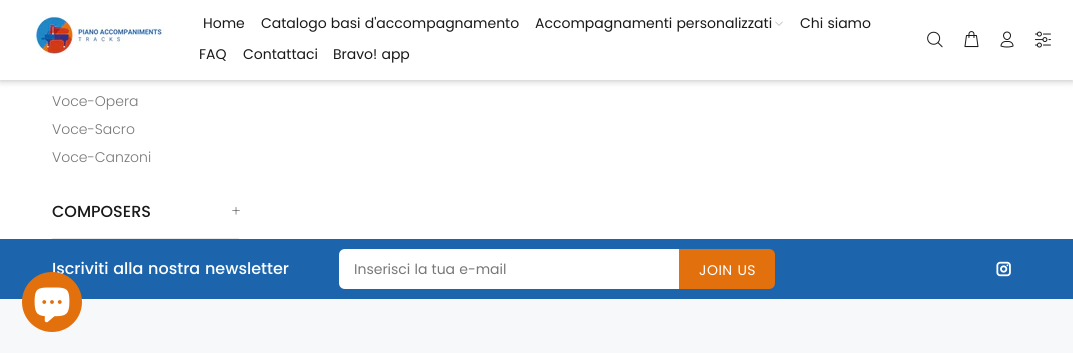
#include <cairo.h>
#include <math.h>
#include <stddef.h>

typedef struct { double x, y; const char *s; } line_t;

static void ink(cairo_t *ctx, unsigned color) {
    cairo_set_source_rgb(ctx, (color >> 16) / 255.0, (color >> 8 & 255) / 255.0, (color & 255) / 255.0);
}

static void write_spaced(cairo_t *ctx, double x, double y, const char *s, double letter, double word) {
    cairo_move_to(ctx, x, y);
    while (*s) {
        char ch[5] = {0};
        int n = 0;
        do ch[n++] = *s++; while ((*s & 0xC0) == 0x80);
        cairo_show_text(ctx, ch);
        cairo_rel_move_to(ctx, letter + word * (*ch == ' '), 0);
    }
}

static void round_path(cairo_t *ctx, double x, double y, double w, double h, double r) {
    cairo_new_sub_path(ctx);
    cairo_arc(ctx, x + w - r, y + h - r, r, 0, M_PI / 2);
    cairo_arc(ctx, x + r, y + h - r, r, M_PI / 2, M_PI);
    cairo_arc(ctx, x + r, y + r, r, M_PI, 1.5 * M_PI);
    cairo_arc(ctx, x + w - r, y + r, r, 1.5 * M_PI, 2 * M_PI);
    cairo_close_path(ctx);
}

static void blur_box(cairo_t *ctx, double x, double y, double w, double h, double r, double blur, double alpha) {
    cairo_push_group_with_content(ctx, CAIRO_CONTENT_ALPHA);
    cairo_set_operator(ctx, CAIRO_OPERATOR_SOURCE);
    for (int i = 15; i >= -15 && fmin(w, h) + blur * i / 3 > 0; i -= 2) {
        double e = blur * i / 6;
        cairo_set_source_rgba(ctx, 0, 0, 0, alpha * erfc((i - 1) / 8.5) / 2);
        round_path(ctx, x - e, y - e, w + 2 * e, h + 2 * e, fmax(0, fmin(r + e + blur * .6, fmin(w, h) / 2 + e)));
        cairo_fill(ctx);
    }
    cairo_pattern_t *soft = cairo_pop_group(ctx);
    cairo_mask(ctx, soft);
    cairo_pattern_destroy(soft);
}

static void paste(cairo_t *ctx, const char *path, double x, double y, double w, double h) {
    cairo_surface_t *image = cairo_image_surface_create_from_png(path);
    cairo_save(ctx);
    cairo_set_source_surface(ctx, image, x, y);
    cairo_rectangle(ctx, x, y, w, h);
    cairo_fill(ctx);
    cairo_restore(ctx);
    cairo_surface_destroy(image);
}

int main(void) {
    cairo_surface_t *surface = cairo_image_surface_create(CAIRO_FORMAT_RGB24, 1073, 353);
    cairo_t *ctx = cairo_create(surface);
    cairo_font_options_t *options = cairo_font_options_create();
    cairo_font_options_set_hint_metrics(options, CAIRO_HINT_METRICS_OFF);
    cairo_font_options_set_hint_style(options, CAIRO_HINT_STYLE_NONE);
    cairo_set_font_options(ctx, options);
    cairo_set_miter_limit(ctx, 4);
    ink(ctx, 0xFFFFFF);
    cairo_paint(ctx);
    ink(ctx, 0x000000);
    blur_box(ctx, 0, 0, 1073, 80, 0, 4, 0.3);
    ink(ctx, 0xFFFFFF);
    cairo_rectangle(ctx, 0, 0, 1073, 80);
    cairo_fill(ctx);
    paste(ctx, "media/1.png", 35, 16, 129, 38);
    cairo_select_font_face(ctx, "Poppins", CAIRO_FONT_SLANT_NORMAL, CAIRO_FONT_WEIGHT_NORMAL);
    cairo_set_font_size(ctx, 14);
    ink(ctx, 0x191919);
    {
        static const line_t items[] = {
            {203, 28, "Home"},
            {261, 28, "Catalogo basi d'accompagnamento"},
            {535, 28, "Accompagnamenti personalizzati"},
        };
        for (size_t i = 0; i < sizeof items / sizeof *items; i++) {
            cairo_move_to(ctx, items[i].x, items[i].y);
            cairo_show_text(ctx, items[i].s);
        }
    }
    paste(ctx, "media/2.png", 775, 21, 8, 5);
    {
        static const line_t items[] = {
            {800, 28, "Chi siamo"},
            {199, 59, "FAQ"},
            {243, 59, "Contattaci"},
            {333, 59, "Bravo! app"},
        };
        for (size_t i = 0; i < sizeof items / sizeof *items; i++) {
            cairo_move_to(ctx, items[i].x, items[i].y);
            cairo_show_text(ctx, items[i].s);
        }
    }
    paste(ctx, "media/3.png", 927, 31, 16, 17);
    paste(ctx, "media/4.png", 964, 31, 15, 17);
    paste(ctx, "media/5.png", 1000, 31, 14, 17);
    paste(ctx, "media/6.png", 1034, 31, 17, 17);
    cairo_select_font_face(ctx, "Poppins Light", CAIRO_FONT_SLANT_NORMAL, CAIRO_FONT_WEIGHT_NORMAL);
    ink(ctx, 0x777777);
    {
        static const line_t items[] = {
            {52, 106, "Voce-Opera"},
            {52, 134, "Voce-Sacro"},
            {52, 162, "Voce-Canzoni"},
        };
        for (size_t i = 0; i < sizeof items / sizeof *items; i++) {
            cairo_move_to(ctx, items[i].x, items[i].y);
            cairo_show_text(ctx, items[i].s);
        }
    }
    ink(ctx, 0xE9E7E7);
    cairo_rectangle(ctx, 52, 238, 187, 1);
    cairo_fill(ctx);
    cairo_select_font_face(ctx, "Poppins Medium", CAIRO_FONT_SLANT_NORMAL, CAIRO_FONT_WEIGHT_NORMAL);
    cairo_set_font_size(ctx, 16);
    ink(ctx, 0x191919);
    cairo_move_to(ctx, 52, 217);
    cairo_show_text(ctx, "COMPOSERS");
    paste(ctx, "media/7.png", 232, 207, 8, 8);
    ink(ctx, 0xF7F8FA);
    cairo_rectangle(ctx, 0, 299, 1073, 54);
    cairo_fill(ctx);
    ink(ctx, 0x1C65AC);
    cairo_rectangle(ctx, 0, 239, 1073, 60);
    cairo_fill(ctx);
    ink(ctx, 0xFFFFFF);
    cairo_move_to(ctx, 52, 274);
    cairo_show_text(ctx, "Iscriviti alla nostra newsletter");
    cairo_new_path(ctx);
    cairo_move_to(ctx, 345, 249);
    cairo_line_to(ctx, 679, 249);
    cairo_line_to(ctx, 679, 289);
    cairo_line_to(ctx, 345, 289);
    cairo_curve_to(ctx, 341.5, 289, 339, 286.5, 339, 283);
    cairo_line_to(ctx, 339, 255);
    cairo_curve_to(ctx, 339, 251.5, 341.5, 249, 345, 249);
    cairo_close_path(ctx);
    cairo_fill(ctx);
    cairo_select_font_face(ctx, "Poppins", CAIRO_FONT_SLANT_NORMAL, CAIRO_FONT_WEIGHT_NORMAL);
    cairo_set_font_size(ctx, 14);
    ink(ctx, 0x777777);
    cairo_move_to(ctx, 354, 274);
    cairo_show_text(ctx, "Inserisci la tua e-mail");
    ink(ctx, 0xE2710D);
    cairo_new_path(ctx);
    cairo_move_to(ctx, 679, 249);
    cairo_line_to(ctx, 769, 249);
    cairo_curve_to(ctx, 772.5, 249, 775, 251.5, 775, 255);
    cairo_line_to(ctx, 775, 283);
    cairo_curve_to(ctx, 775, 286.5, 772.5, 289, 769, 289);
    cairo_line_to(ctx, 679, 289);
    cairo_close_path(ctx);
    cairo_fill(ctx);
    ink(ctx, 0xFFFFFF);
    write_spaced(ctx, 699, 275, "JOIN US", 0.5, 0);
    paste(ctx, "media/8.png", 996, 261, 15, 16);
    ink(ctx, 0xE2710D);
    cairo_arc(ctx, 52, 302, 30, 0, 2 * M_PI);
    cairo_fill(ctx);
    paste(ctx, "media/9.png", 34, 287, 36, 36);
    cairo_surface_write_to_png(surface, "image.png");
    cairo_font_options_destroy(options);
    cairo_destroy(ctx);
    cairo_surface_destroy(surface);
    return 0;
}
